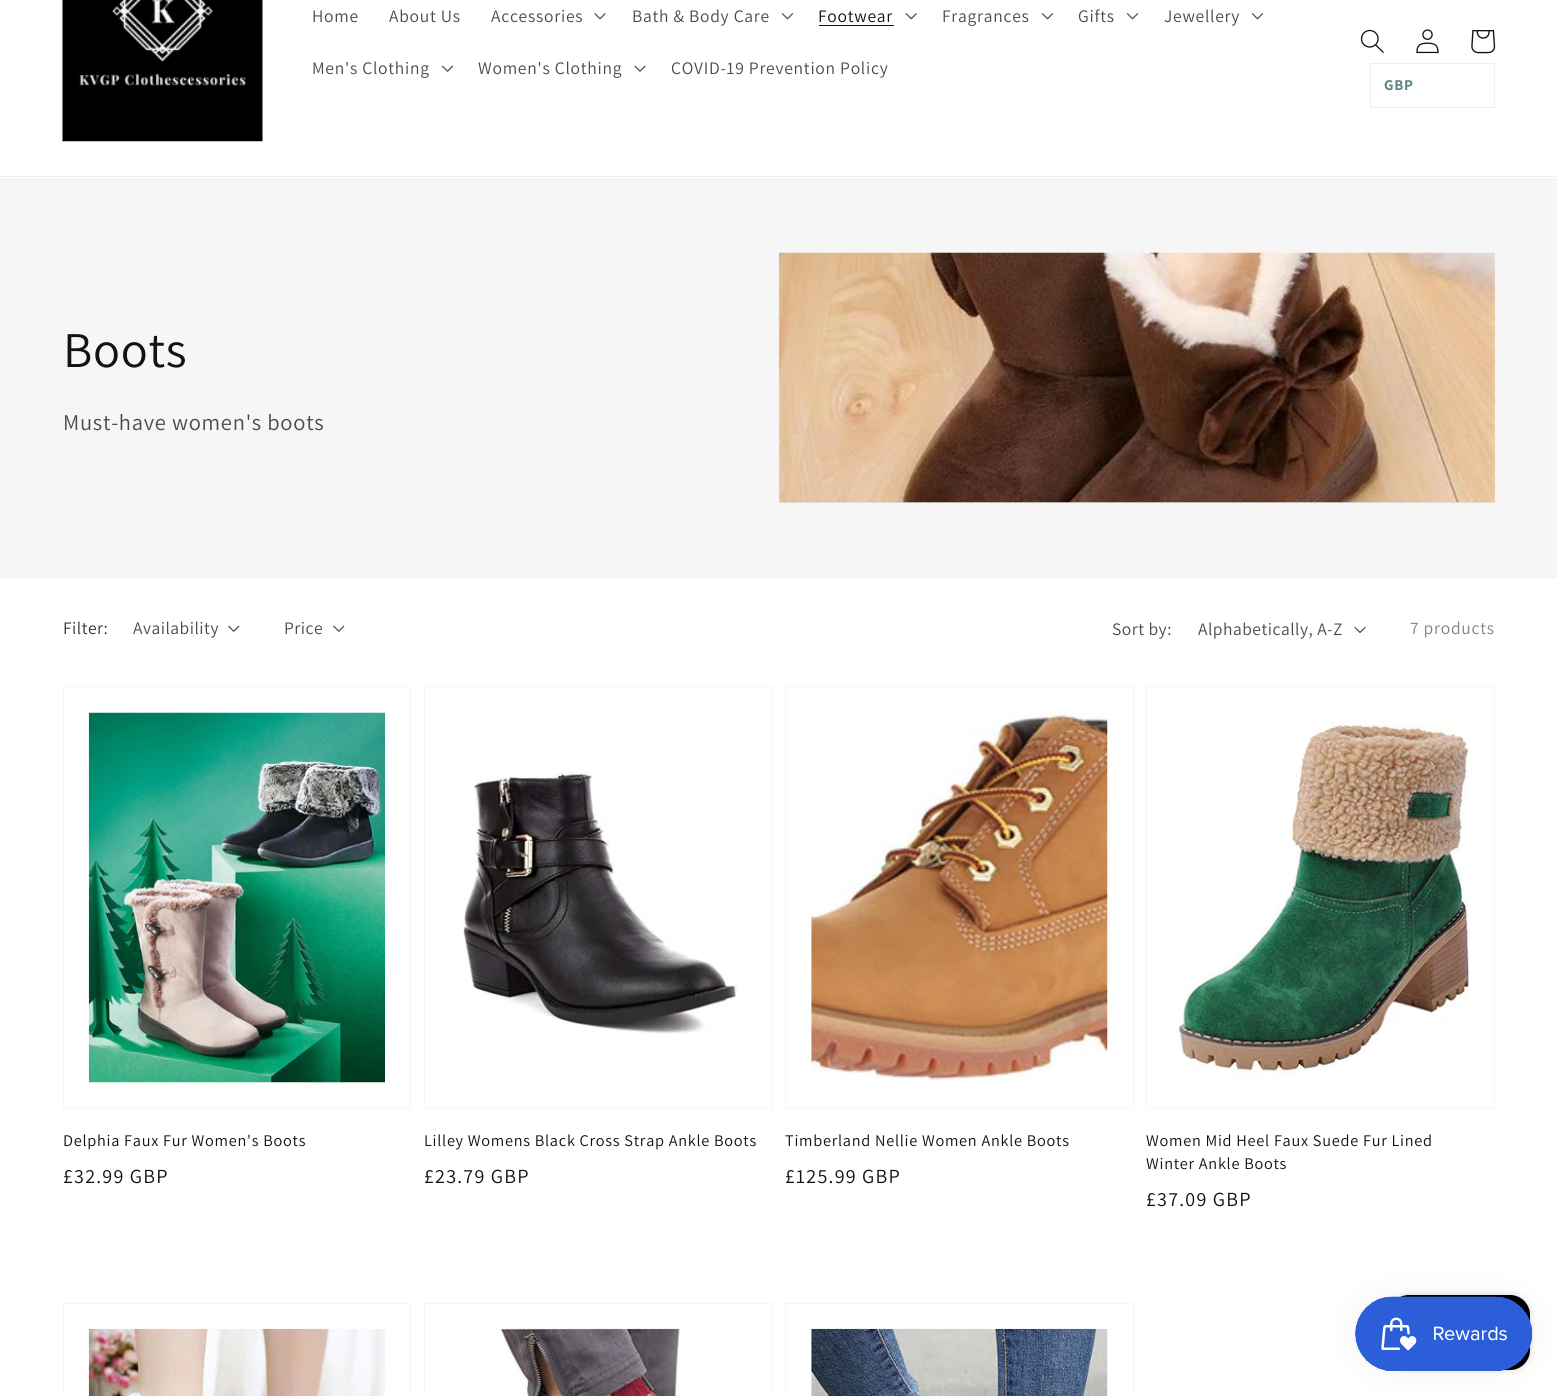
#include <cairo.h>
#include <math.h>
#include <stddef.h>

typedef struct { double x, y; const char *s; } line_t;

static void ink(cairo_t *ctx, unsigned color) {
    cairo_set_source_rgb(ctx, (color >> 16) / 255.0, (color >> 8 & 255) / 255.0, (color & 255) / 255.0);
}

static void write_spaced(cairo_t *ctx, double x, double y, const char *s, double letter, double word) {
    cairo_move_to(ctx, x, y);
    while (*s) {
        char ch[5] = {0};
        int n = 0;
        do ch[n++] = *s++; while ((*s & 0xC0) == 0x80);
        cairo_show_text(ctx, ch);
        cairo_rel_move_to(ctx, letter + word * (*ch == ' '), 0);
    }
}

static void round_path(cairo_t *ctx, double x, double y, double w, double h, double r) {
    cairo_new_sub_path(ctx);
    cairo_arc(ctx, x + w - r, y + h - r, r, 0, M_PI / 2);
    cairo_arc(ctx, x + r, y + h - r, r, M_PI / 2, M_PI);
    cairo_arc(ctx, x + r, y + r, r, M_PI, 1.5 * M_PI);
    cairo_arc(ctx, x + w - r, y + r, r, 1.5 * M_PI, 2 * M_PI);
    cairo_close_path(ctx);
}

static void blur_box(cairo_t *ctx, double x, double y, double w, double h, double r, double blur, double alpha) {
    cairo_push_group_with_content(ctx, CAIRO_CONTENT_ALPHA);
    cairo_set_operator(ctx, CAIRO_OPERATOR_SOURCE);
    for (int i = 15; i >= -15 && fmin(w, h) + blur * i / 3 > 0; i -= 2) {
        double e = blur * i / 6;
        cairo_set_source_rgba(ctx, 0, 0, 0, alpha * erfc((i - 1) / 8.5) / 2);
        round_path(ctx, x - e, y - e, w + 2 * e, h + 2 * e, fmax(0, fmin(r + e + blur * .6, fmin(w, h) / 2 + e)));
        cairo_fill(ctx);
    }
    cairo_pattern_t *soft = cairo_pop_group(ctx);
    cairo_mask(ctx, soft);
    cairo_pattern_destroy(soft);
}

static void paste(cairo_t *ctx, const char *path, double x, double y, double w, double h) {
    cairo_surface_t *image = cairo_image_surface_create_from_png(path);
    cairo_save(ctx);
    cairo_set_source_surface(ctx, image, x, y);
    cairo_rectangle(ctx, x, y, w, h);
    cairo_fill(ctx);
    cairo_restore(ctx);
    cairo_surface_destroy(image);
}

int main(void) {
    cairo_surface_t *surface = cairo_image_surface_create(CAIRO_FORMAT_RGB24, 1557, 1396);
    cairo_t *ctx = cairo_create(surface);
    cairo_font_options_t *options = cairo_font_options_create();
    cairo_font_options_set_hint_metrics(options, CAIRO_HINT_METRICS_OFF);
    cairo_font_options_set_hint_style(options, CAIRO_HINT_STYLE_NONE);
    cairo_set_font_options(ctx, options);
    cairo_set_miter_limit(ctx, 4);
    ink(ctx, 0xFFFFFF);
    cairo_paint(ctx);
    ink(ctx, 0xECECEC);
    cairo_rectangle(ctx, 0, 176, 1557, 1);
    cairo_fill(ctx);
    paste(ctx, "media/1.png", 62, 0, 201, 142);
    cairo_select_font_face(ctx, "Assistant", CAIRO_FONT_SLANT_NORMAL, CAIRO_FONT_WEIGHT_NORMAL);
    cairo_set_font_size(ctx, 17.5);
    ink(ctx, 0x4B4B4B);
    {
        static const line_t items[] = {
            {312, 22, "Home"},
            {389, 22, "About Us"},
            {491, 22, "Accessories"},
        };
        for (size_t i = 0; i < sizeof items / sizeof *items; i++) {
            write_spaced(ctx, items[i].x, items[i].y, items[i].s, 0.75, 0);
        }
    }
    paste(ctx, "media/2.png", 594, 13, 12, 7);
    write_spaced(ctx, 632, 22, "Bath & Body Care", 0.75, 0);
    paste(ctx, "media/3.png", 781, 13, 13, 7);
    ink(ctx, 0x121212);
    write_spaced(ctx, 818, 22, "Footwear", 0.75, 0);
    cairo_rectangle(ctx, 819, 25, 75, 1);
    cairo_fill(ctx);
    paste(ctx, "media/4.png", 905, 13, 12, 7);
    ink(ctx, 0x4B4B4B);
    write_spaced(ctx, 942, 22, "Fragrances", 0.75, 0);
    paste(ctx, "media/3.png", 1041, 13, 13, 7);
    write_spaced(ctx, 1078, 22, "Gifts", 0.75, 0);
    paste(ctx, "media/3.png", 1126, 13, 13, 7);
    write_spaced(ctx, 1164, 22, "Jewellery", 0.75, 0);
    paste(ctx, "media/3.png", 1251, 13, 13, 7);
    write_spaced(ctx, 312, 74, "Men's Clothing", 0.75, 0);
    paste(ctx, "media/5.png", 441, 65, 13, 7);
    write_spaced(ctx, 478, 74, "Women's Clothing", 0.75, 0);
    paste(ctx, "media/6.png", 634, 65, 12, 7);
    write_spaced(ctx, 671, 74, "COVID-19 Prevention Policy", 0.75, 0);
    paste(ctx, "media/7.png", 1360, 29, 24, 24);
    paste(ctx, "media/8.png", 1416, 29, 23, 25);
    paste(ctx, "media/9.png", 1471, 30, 25, 24);
    cairo_rectangle(ctx, 1370.5, 63.5, 124, 44);
    ink(ctx, 0xEEEEEE);
    cairo_set_line_width(ctx, 1);
    cairo_stroke(ctx);
    cairo_select_font_face(ctx, "Assistant", CAIRO_FONT_SLANT_NORMAL, CAIRO_FONT_WEIGHT_BOLD);
    cairo_set_font_size(ctx, 15);
    ink(ctx, 0x5B8583);
    write_spaced(ctx, 1384, 90, "GBP", 0.75, 0);
    ink(ctx, 0xF6F6F6);
    cairo_rectangle(ctx, 0, 178, 1557, 400);
    cairo_fill(ctx);
    cairo_select_font_face(ctx, "Assistant", CAIRO_FONT_SLANT_NORMAL, CAIRO_FONT_WEIGHT_NORMAL);
    cairo_set_font_size(ctx, 50);
    ink(ctx, 0x121212);
    write_spaced(ctx, 63, 367, "Boots", 0.75, 0);
    cairo_set_font_size(ctx, 22.5);
    ink(ctx, 0x4B4B4B);
    write_spaced(ctx, 63, 430, "Must-have women's boots", 0.75, 0);
    ink(ctx, 0xE0E0E0);
    cairo_rectangle(ctx, 779, 502, 716, 1);
    cairo_fill(ctx);
    paste(ctx, "media/10.png", 778, 252, 717, 251);
    cairo_set_font_size(ctx, 17.5);
    ink(ctx, 0x363636);
    write_spaced(ctx, 63, 634, "Filter:", 0.5, 0);
    ink(ctx, 0x4B4B4B);
    write_spaced(ctx, 133, 634, "Availability", 0.5, 0);
    paste(ctx, "media/11.png", 228, 625, 12, 7);
    write_spaced(ctx, 284, 634, "Price", 0.5, 0);
    paste(ctx, "media/11.png", 333, 625, 12, 7);
    write_spaced(ctx, 1112, 635, "Sort by:", 0.5, 0);
    write_spaced(ctx, 1198, 635, "Alphabetically, A-Z", 0.5, 0);
    paste(ctx, "media/12.png", 1354, 627, 12, 6);
    ink(ctx, 0x838383);
    write_spaced(ctx, 1410, 634, "7 products", 0.75, 0);
    cairo_rectangle(ctx, 63.5, 686.5, 347, 422);
    ink(ctx, 0xF6F6F6);
    cairo_stroke(ctx);
    paste(ctx, "media/13.png", 88, 712, 297, 371);
    cairo_set_font_size(ctx, 16.25);
    ink(ctx, 0x121212);
    write_spaced(ctx, 63, 1146, "Delphia Faux Fur Women's Boots", 0.75, 0);
    cairo_set_font_size(ctx, 20);
    write_spaced(ctx, 63, 1183, "£32.99 GBP", 1.25, 0);
    cairo_rectangle(ctx, 424.5, 686.5, 348, 422);
    ink(ctx, 0xF6F6F6);
    cairo_stroke(ctx);
    paste(ctx, "media/14.png", 462, 772, 276, 262);
    cairo_set_font_size(ctx, 16.25);
    ink(ctx, 0x121212);
    write_spaced(ctx, 424, 1146, "Lilley Womens Black Cross Strap Ankle Boots", 0.75, 0);
    cairo_set_font_size(ctx, 20);
    write_spaced(ctx, 424, 1183, "£23.79 GBP", 1.25, 0);
    cairo_rectangle(ctx, 785.5, 686.5, 348, 422);
    ink(ctx, 0xF6F6F6);
    cairo_stroke(ctx);
    paste(ctx, "media/15.png", 811, 713, 297, 369);
    cairo_set_font_size(ctx, 16.25);
    ink(ctx, 0x121212);
    write_spaced(ctx, 785, 1146, "Timberland Nellie Women Ankle Boots", 0.75, 0);
    cairo_set_font_size(ctx, 20);
    write_spaced(ctx, 785, 1183, "£125.99 GBP", 1.25, 0);
    cairo_rectangle(ctx, 1146.5, 686.5, 348, 422);
    ink(ctx, 0xF6F6F6);
    cairo_stroke(ctx);
    paste(ctx, "media/16.png", 1176, 721, 293, 361);
    cairo_set_font_size(ctx, 16.25);
    ink(ctx, 0x121212);
    write_spaced(ctx, 1146, 1146, "Women Mid Heel Faux Suede Fur Lined", 0.75, 0);
    write_spaced(ctx, 1146, 1169, "Winter Ankle Boots", 0.75, 0);
    cairo_set_font_size(ctx, 20);
    write_spaced(ctx, 1146, 1206, "£37.09 GBP", 1.25, 0);
    cairo_rectangle(ctx, 63.5, 1303.5, 347, 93);
    ink(ctx, 0xF6F6F6);
    cairo_stroke(ctx);
    paste(ctx, "media/17.png", 88, 1328, 297, 68);
    cairo_rectangle(ctx, 424.5, 1303.5, 348, 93);
    cairo_stroke(ctx);
    paste(ctx, "media/18.png", 501, 1328, 181, 68);
    cairo_rectangle(ctx, 785.5, 1303.5, 348, 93);
    cairo_stroke(ctx);
    paste(ctx, "media/19.png", 811, 1328, 297, 68);
    ink(ctx, 0x000000);
    blur_box(ctx, 1389, 1295, 141, 75, 20, 3, 0.15);
    ink(ctx, 0x000000);
    round_path(ctx, 1389, 1295, 141, 75, 20);
    cairo_fill(ctx);
    ink(ctx, 0x000000);
    blur_box(ctx, 1355, 1296, 178, 75, 37.5, 15.5, 0.05);
    paste(ctx, "media/20.png", 1355, 1296, 178, 75);
    cairo_surface_write_to_png(surface, "image.png");
    cairo_font_options_destroy(options);
    cairo_destroy(ctx);
    cairo_surface_destroy(surface);
    return 0;
}
